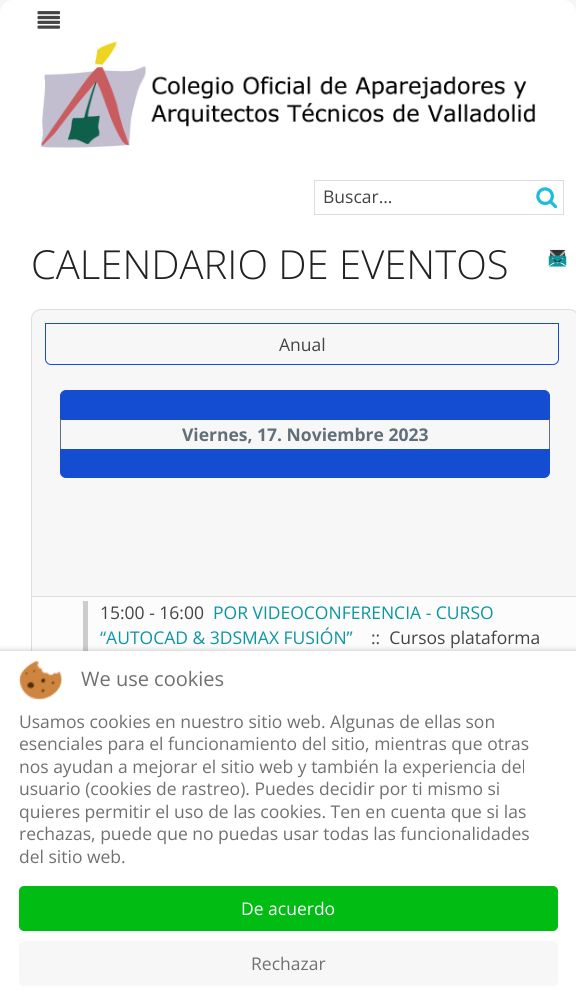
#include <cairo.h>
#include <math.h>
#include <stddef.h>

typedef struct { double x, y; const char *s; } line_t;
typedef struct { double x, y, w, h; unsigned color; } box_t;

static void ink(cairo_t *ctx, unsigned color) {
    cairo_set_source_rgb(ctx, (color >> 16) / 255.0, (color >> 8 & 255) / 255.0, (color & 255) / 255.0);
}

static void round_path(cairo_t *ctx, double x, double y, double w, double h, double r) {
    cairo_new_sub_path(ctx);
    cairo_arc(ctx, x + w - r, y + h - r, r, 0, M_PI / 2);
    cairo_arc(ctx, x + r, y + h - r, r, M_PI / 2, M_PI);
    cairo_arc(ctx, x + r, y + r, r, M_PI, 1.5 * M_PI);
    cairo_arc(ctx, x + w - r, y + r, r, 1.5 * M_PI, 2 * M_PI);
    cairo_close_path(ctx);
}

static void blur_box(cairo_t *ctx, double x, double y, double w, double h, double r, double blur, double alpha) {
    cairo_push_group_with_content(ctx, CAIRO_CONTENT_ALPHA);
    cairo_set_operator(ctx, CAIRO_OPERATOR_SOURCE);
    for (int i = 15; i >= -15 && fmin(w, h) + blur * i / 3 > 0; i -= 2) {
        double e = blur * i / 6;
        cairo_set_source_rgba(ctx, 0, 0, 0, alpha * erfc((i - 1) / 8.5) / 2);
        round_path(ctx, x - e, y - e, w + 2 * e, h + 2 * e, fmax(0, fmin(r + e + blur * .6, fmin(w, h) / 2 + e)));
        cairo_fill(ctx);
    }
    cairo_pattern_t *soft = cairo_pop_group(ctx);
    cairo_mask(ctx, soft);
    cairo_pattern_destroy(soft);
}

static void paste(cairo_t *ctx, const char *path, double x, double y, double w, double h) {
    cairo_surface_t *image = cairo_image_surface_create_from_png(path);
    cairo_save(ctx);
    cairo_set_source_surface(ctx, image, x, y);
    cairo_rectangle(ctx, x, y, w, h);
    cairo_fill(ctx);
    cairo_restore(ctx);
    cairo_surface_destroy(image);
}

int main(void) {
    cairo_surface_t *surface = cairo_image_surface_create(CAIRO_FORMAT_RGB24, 576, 1005);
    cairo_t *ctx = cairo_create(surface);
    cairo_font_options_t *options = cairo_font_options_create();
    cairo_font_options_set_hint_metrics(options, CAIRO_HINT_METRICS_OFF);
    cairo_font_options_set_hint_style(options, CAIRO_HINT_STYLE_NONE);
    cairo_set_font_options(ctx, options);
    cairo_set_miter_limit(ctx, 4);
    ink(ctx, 0xF6F6F6);
    cairo_paint(ctx);
    ink(ctx, 0xFFFFFF);
    round_path(ctx, 0, 0, 576, 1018, 13);
    cairo_fill(ctx);
    paste(ctx, "media/1.png", 37, 11, 23, 18);
    paste(ctx, "media/2.png", 40, 41, 496, 107);
    cairo_rectangle(ctx, 314.5, 180.5, 249, 34);
    ink(ctx, 0xDDDDDD);
    cairo_set_line_width(ctx, 1);
    cairo_stroke(ctx);
    cairo_select_font_face(ctx, "Open Sans", CAIRO_FONT_SLANT_NORMAL, CAIRO_FONT_WEIGHT_NORMAL);
    cairo_set_font_size(ctx, 17.5);
    ink(ctx, 0x444444);
    cairo_move_to(ctx, 323, 203);
    cairo_show_text(ctx, "Buscar...");
    paste(ctx, "media/3.png", 536, 187, 22, 22);
    cairo_select_font_face(ctx, "Open Sans Light", CAIRO_FONT_SLANT_NORMAL, CAIRO_FONT_WEIGHT_NORMAL);
    cairo_set_font_size(ctx, 40);
    ink(ctx, 0x222222);
    cairo_move_to(ctx, 31, 279);
    cairo_show_text(ctx, "CALENDARIO DE EVENTOS");
    paste(ctx, "media/4.png", 549, 249, 17, 14);
    paste(ctx, "media/5.png", 548, 255, 19, 12);
    ink(ctx, 0xF7F7F7);
    round_path(ctx, 31.5, 309.5, 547, 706, 9.5);
    cairo_fill_preserve(ctx);
    ink(ctx, 0xDDDDDD);
    cairo_stroke(ctx);
    cairo_new_path(ctx);
    cairo_move_to(ctx, 45.5, 323.5);
    cairo_line_to(ctx, 558.5, 323.5);
    cairo_line_to(ctx, 558.5, 359);
    cairo_curve_to(ctx, 558.5, 362, 556, 364.5, 553, 364.5);
    cairo_line_to(ctx, 51, 364.5);
    cairo_curve_to(ctx, 48, 364.5, 45.5, 362, 45.5, 359);
    cairo_close_path(ctx);
    ink(ctx, 0x144DD1);
    cairo_stroke(ctx);
    cairo_select_font_face(ctx, "Open Sans", CAIRO_FONT_SLANT_NORMAL, CAIRO_FONT_WEIGHT_NORMAL);
    cairo_set_font_size(ctx, 17.5);
    ink(ctx, 0x444444);
    cairo_move_to(ctx, 279, 351);
    cairo_show_text(ctx, "Anual");
    ink(ctx, 0x144DD1);
    cairo_new_path(ctx);
    cairo_move_to(ctx, 66, 390.5);
    cairo_line_to(ctx, 544, 390.5);
    cairo_curve_to(ctx, 547, 390.5, 549.5, 393, 549.5, 396);
    cairo_line_to(ctx, 549.5, 418.5);
    cairo_line_to(ctx, 60.5, 418.5);
    cairo_line_to(ctx, 60.5, 396);
    cairo_curve_to(ctx, 60.5, 393, 63, 390.5, 66, 390.5);
    cairo_close_path(ctx);
    cairo_fill_preserve(ctx);
    cairo_stroke(ctx);
    {
        static const box_t items[] = {
            {60, 419, 490, 1, 0x144DD1},
            {549, 419, 1, 31, 0x606F79},
            {60, 419, 1, 31, 0x606F79},
        };
        for (size_t i = 0; i < sizeof items / sizeof *items; i++) {
            ink(ctx, items[i].color);
            cairo_rectangle(ctx, items[i].x, items[i].y, items[i].w, items[i].h);
            cairo_fill(ctx);
        }
    }
    cairo_select_font_face(ctx, "Open Sans", CAIRO_FONT_SLANT_NORMAL, CAIRO_FONT_WEIGHT_BOLD);
    cairo_move_to(ctx, 182, 441);
    cairo_show_text(ctx, "Viernes, 17. Noviembre 2023");
    ink(ctx, 0x144DD1);
    cairo_new_path(ctx);
    cairo_move_to(ctx, 60.5, 449.5);
    cairo_line_to(ctx, 549.5, 449.5);
    cairo_line_to(ctx, 549.5, 472);
    cairo_curve_to(ctx, 549.5, 475, 547, 477.5, 544, 477.5);
    cairo_line_to(ctx, 66, 477.5);
    cairo_curve_to(ctx, 63, 477.5, 60.5, 475, 60.5, 472);
    cairo_close_path(ctx);
    cairo_fill_preserve(ctx);
    cairo_stroke(ctx);
    ink(ctx, 0xFCFCFC);
    cairo_rectangle(ctx, 32, 597, 544, 54);
    cairo_fill(ctx);
    cairo_rectangle(ctx, 31.5, 596.5, 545, 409);
    ink(ctx, 0xDDDDDD);
    cairo_stroke(ctx);
    ink(ctx, 0xCCCCCC);
    cairo_rectangle(ctx, 83, 601, 5, 50);
    cairo_fill(ctx);
    cairo_select_font_face(ctx, "Open Sans", CAIRO_FONT_SLANT_NORMAL, CAIRO_FONT_WEIGHT_NORMAL);
    ink(ctx, 0x444444);
    cairo_move_to(ctx, 100, 619);
    cairo_show_text(ctx, "15:00 - 16:00");
    ink(ctx, 0x0C96A0);
    cairo_move_to(ctx, 213, 619);
    cairo_show_text(ctx, "POR VIDEOCONFERENCIA - CURSO");
    cairo_move_to(ctx, 100, 644);
    cairo_show_text(ctx, "“AUTOCAD & 3DSMAX FUSIÓN”");
    ink(ctx, 0x444444);
    cairo_move_to(ctx, 371, 644);
    cairo_show_text(ctx, "::  Cursos plataforma");
    ink(ctx, 0x000000);
    blur_box(ctx, 0, 651, 576, 354, 0, 3, 0.25);
    ink(ctx, 0xFFFFFF);
    cairo_rectangle(ctx, 0, 651, 576, 354);
    cairo_fill(ctx);
    paste(ctx, "media/6.png", 18, 660, 45, 40);
    cairo_set_font_size(ctx, 20);
    ink(ctx, 0x707070);
    cairo_move_to(ctx, 81, 686);
    cairo_show_text(ctx, "We use cookies");
    cairo_set_font_size(ctx, 17.5);
    {
        static const line_t items[] = {
            {19, 728, "Usamos cookies en nuestro sitio web. Algunas de ellas son"},
            {19, 750, "esenciales para el funcionamiento del sitio, mientras que otras"},
            {19, 773, "nos ayudan a mejorar el sitio web y también la experiencia del"},
            {19, 795, "usuario (cookies de rastreo). Puedes decidir por ti mismo si"},
            {19, 818, "quieres permitir el uso de las cookies. Ten en cuenta que si las"},
            {19, 840, "rechazas, puede que no puedas usar todas las funcionalidades"},
            {19, 863, "del sitio web."},
        };
        for (size_t i = 0; i < sizeof items / sizeof *items; i++) {
            cairo_move_to(ctx, items[i].x, items[i].y);
            cairo_show_text(ctx, items[i].s);
        }
    }
    ink(ctx, 0x00BC13);
    round_path(ctx, 19, 886, 539, 45, 5);
    cairo_fill(ctx);
    ink(ctx, 0xFFFFFF);
    cairo_move_to(ctx, 241, 915);
    cairo_show_text(ctx, "De acuerdo");
    ink(ctx, 0xF7F7F7);
    round_path(ctx, 19, 941, 539, 45, 5);
    cairo_fill(ctx);
    ink(ctx, 0x707070);
    cairo_move_to(ctx, 251, 970);
    cairo_show_text(ctx, "Rechazar");
    cairo_surface_write_to_png(surface, "image.png");
    cairo_font_options_destroy(options);
    cairo_destroy(ctx);
    cairo_surface_destroy(surface);
    return 0;
}
